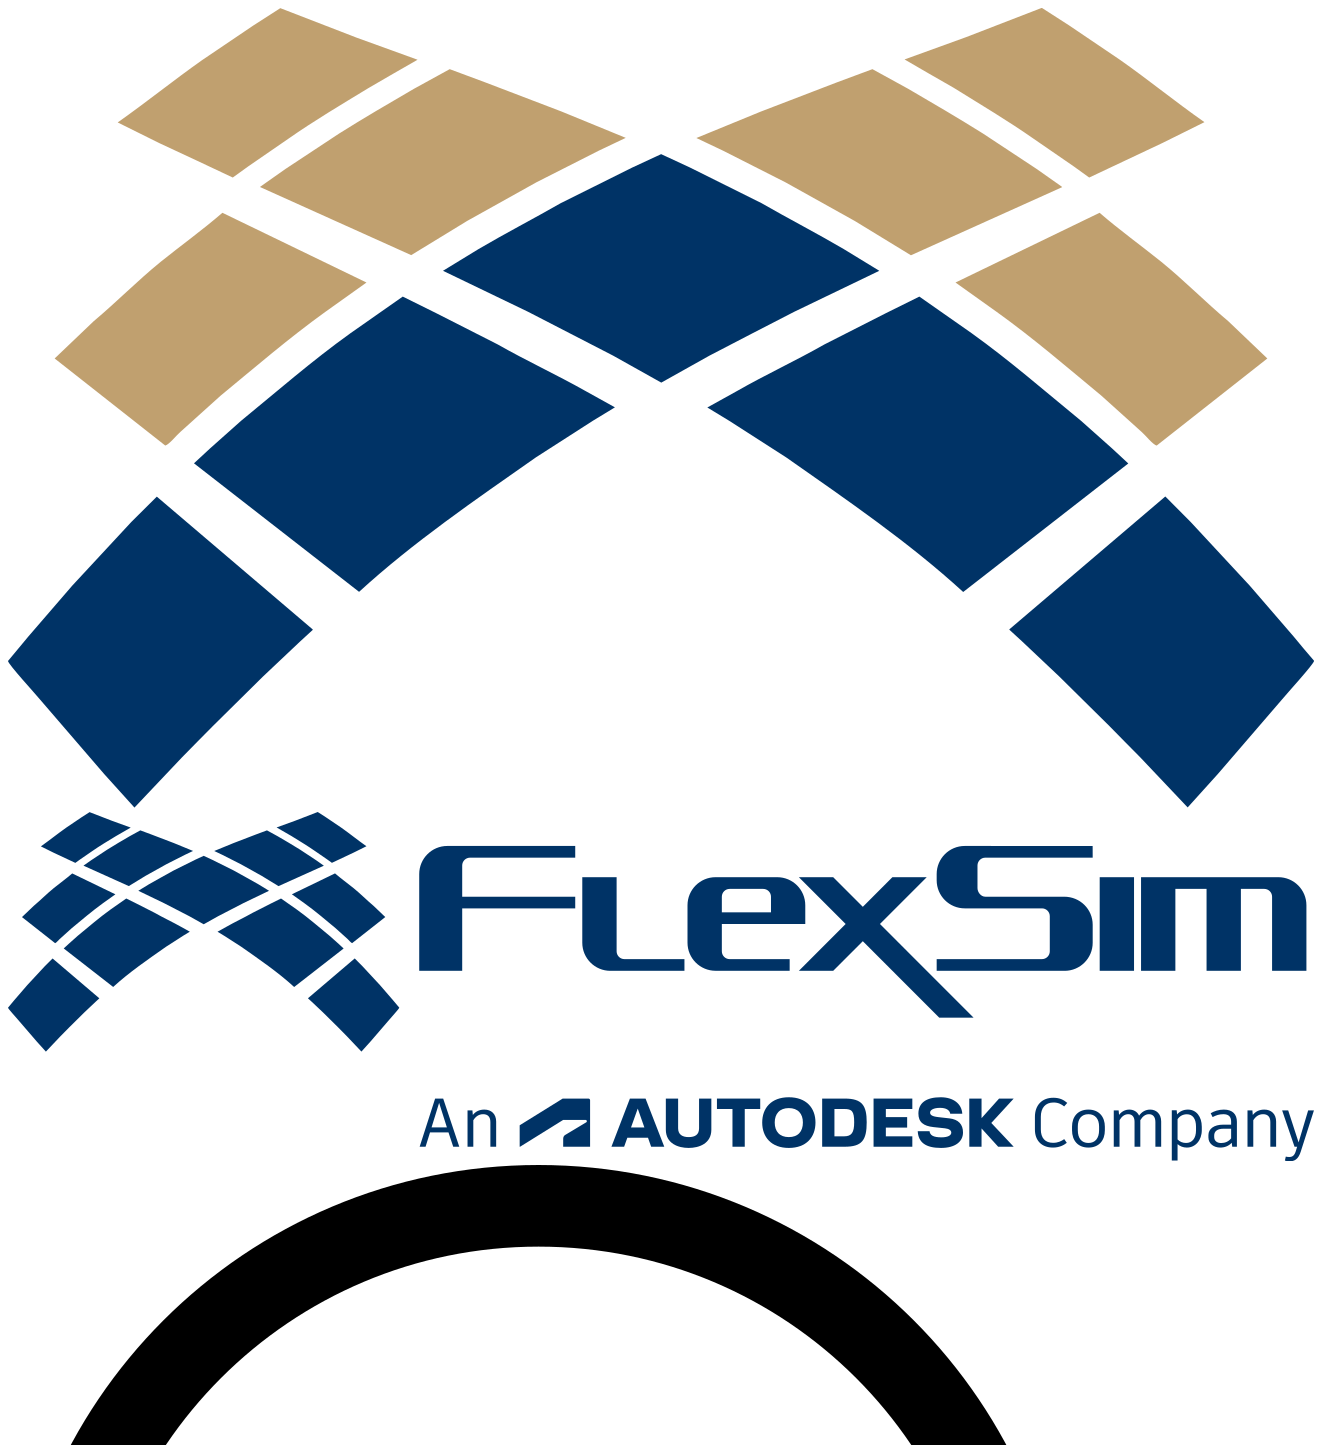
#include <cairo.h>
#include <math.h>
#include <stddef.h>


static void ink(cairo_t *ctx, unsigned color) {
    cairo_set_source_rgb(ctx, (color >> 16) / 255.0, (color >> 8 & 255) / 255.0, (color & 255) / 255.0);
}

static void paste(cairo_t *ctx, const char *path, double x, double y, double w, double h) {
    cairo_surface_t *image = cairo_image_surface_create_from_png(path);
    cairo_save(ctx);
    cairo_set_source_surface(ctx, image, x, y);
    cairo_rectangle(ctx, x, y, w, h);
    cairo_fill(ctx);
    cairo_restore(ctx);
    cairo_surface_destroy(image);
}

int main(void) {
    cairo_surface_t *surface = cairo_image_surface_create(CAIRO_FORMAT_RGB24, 1322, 1445);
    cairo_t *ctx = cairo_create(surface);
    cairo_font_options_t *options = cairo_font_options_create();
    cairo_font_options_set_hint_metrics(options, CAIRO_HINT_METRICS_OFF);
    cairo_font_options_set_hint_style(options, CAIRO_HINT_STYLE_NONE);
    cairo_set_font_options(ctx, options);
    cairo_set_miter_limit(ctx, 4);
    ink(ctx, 0xFFFFFF);
    cairo_paint(ctx);
    paste(ctx, "media/1.png", 8, 8, 1306, 800);
    paste(ctx, "media/2.png", 8, 812, 1306, 349);
    paste(ctx, "media/3.png", 70, 1165, 937, 280);
    cairo_surface_write_to_png(surface, "image.png");
    cairo_font_options_destroy(options);
    cairo_destroy(ctx);
    cairo_surface_destroy(surface);
    return 0;
}
